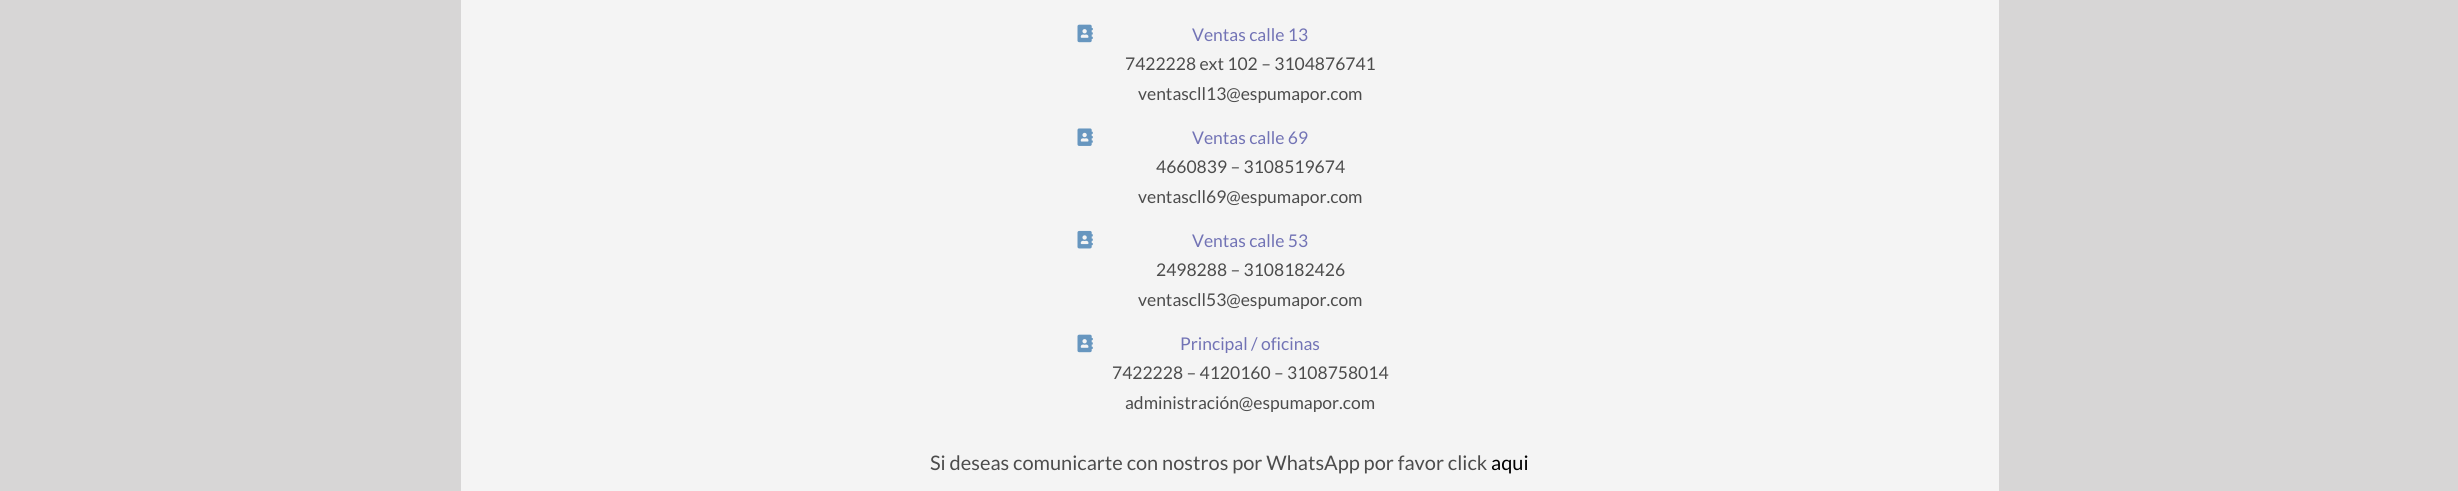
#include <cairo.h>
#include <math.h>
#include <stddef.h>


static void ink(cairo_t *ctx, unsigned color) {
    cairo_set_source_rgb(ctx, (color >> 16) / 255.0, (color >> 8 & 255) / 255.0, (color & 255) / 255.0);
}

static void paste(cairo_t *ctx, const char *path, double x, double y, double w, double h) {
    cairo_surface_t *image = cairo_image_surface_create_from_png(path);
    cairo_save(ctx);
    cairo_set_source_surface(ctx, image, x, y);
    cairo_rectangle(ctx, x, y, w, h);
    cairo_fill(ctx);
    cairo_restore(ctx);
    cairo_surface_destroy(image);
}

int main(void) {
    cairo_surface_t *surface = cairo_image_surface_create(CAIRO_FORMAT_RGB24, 2458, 491);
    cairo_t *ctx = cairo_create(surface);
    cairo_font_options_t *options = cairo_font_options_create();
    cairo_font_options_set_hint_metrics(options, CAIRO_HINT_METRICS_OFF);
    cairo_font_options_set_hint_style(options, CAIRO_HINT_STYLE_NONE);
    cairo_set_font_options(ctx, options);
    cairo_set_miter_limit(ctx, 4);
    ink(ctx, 0xD7D6D6);
    cairo_paint(ctx);
    ink(ctx, 0xF4F4F4);
    cairo_rectangle(ctx, 461, 0, 1538, 491);
    cairo_fill(ctx);
    paste(ctx, "media/1.png", 1077, 24, 16, 19);
    cairo_select_font_face(ctx, "Lato", CAIRO_FONT_SLANT_NORMAL, CAIRO_FONT_WEIGHT_NORMAL);
    cairo_set_font_size(ctx, 17.5);
    ink(ctx, 0x7273B5);
    cairo_move_to(ctx, 1192, 41);
    cairo_show_text(ctx, "Ventas calle 13");
    ink(ctx, 0x4C4C4C);
    cairo_move_to(ctx, 1125, 70);
    cairo_show_text(ctx, "7422228 ext 102 – 3104876741");
    cairo_move_to(ctx, 1138, 100);
    cairo_show_text(ctx, "ventascll13@espumapor.com");
    paste(ctx, "media/2.png", 1077, 128, 16, 18);
    ink(ctx, 0x7273B5);
    cairo_move_to(ctx, 1192, 144);
    cairo_show_text(ctx, "Ventas calle 69");
    ink(ctx, 0x4C4C4C);
    cairo_move_to(ctx, 1156, 173);
    cairo_show_text(ctx, "4660839 – 3108519674");
    cairo_move_to(ctx, 1138, 203);
    cairo_show_text(ctx, "ventascll69@espumapor.com");
    paste(ctx, "media/3.png", 1077, 230, 16, 19);
    ink(ctx, 0x7273B5);
    cairo_move_to(ctx, 1192, 247);
    cairo_show_text(ctx, "Ventas calle 53");
    ink(ctx, 0x4C4C4C);
    cairo_move_to(ctx, 1156, 276);
    cairo_show_text(ctx, "2498288 – 3108182426");
    cairo_move_to(ctx, 1138, 306);
    cairo_show_text(ctx, "ventascll53@espumapor.com");
    paste(ctx, "media/1.png", 1077, 334, 16, 19);
    ink(ctx, 0x7273B5);
    cairo_move_to(ctx, 1180, 350);
    cairo_show_text(ctx, "Principal / oficinas");
    ink(ctx, 0x4C4C4C);
    cairo_move_to(ctx, 1112, 379);
    cairo_show_text(ctx, "7422228 – 4120160 – 3108758014");
    cairo_move_to(ctx, 1125, 409);
    cairo_show_text(ctx, "administración@espumapor.com");
    cairo_set_font_size(ctx, 20);
    cairo_move_to(ctx, 930, 470);
    cairo_show_text(ctx, "Si deseas comunicarte con nostros por WhatsApp por favor click");
    ink(ctx, 0x000000);
    cairo_move_to(ctx, 1491, 470);
    cairo_show_text(ctx, "aqui");
    cairo_surface_write_to_png(surface, "image.png");
    cairo_font_options_destroy(options);
    cairo_destroy(ctx);
    cairo_surface_destroy(surface);
    return 0;
}
